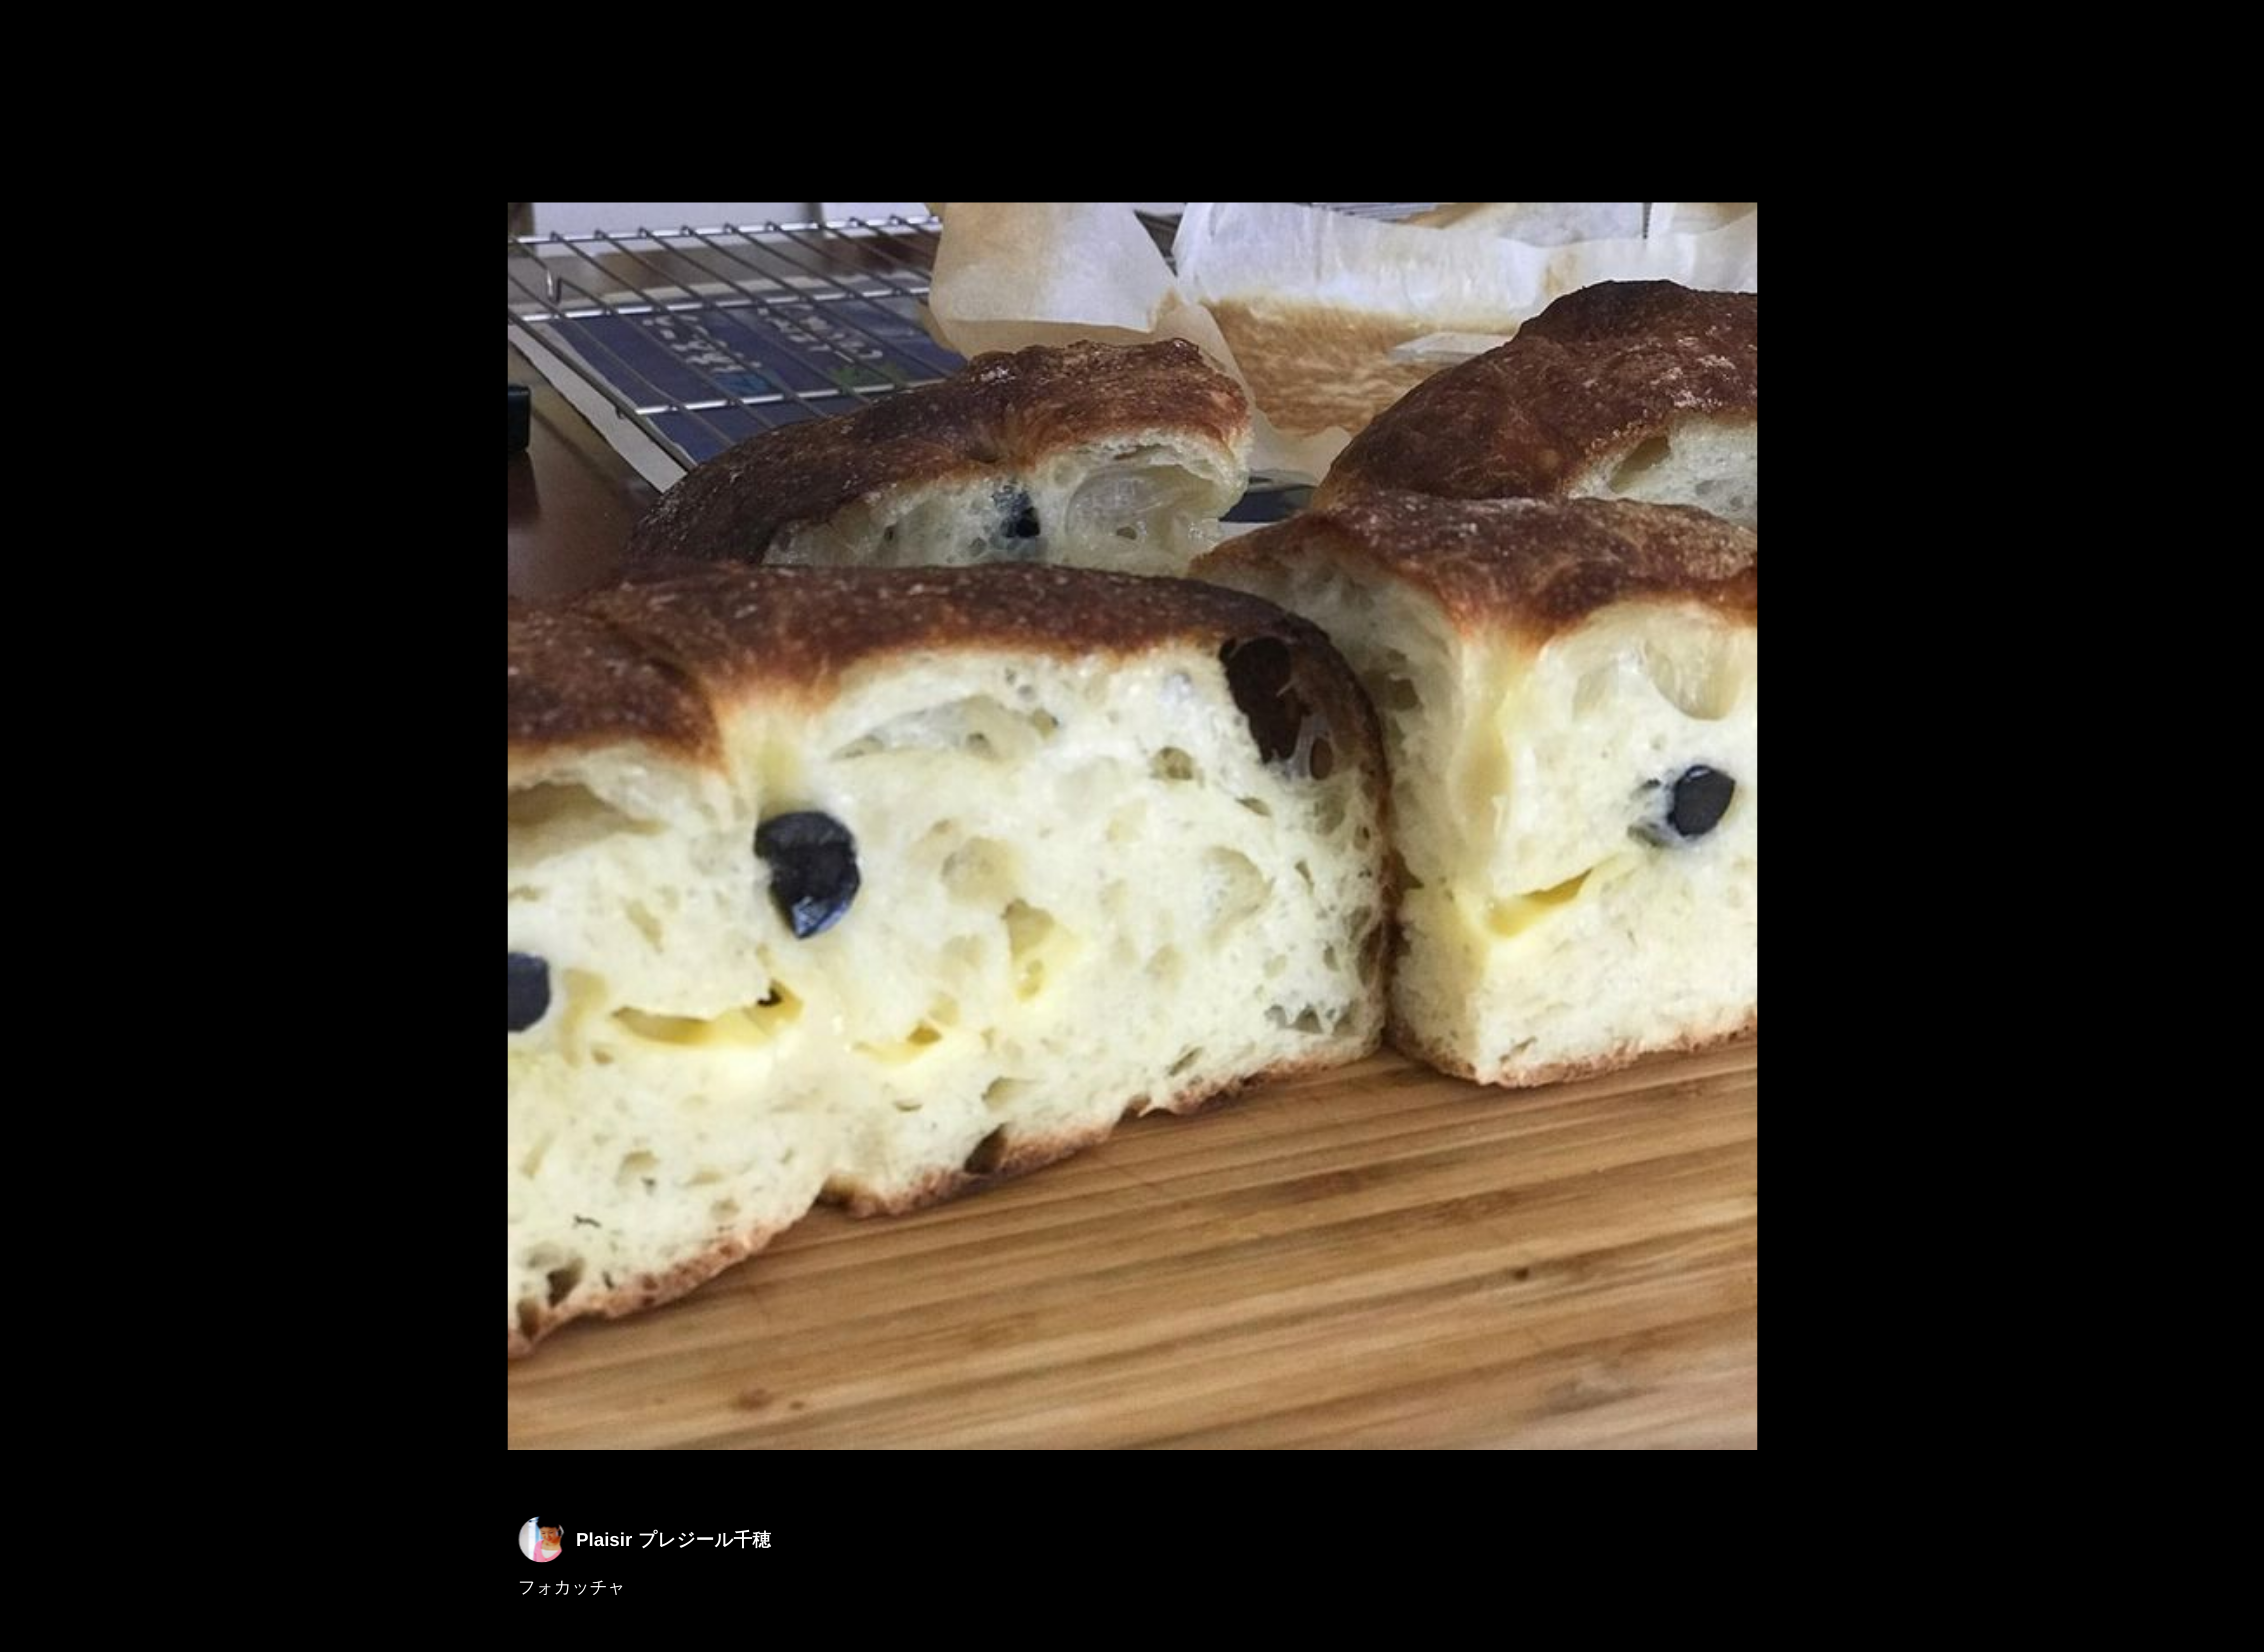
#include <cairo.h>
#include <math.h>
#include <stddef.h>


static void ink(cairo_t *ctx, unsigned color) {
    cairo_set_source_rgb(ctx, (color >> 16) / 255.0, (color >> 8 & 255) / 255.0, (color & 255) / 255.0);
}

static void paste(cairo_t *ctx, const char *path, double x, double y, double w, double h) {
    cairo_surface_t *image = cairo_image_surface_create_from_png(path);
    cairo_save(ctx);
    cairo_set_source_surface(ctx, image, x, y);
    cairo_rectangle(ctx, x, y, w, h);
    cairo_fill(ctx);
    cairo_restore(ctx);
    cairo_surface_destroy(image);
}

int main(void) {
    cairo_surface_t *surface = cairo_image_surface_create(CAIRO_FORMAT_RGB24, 2264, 1652);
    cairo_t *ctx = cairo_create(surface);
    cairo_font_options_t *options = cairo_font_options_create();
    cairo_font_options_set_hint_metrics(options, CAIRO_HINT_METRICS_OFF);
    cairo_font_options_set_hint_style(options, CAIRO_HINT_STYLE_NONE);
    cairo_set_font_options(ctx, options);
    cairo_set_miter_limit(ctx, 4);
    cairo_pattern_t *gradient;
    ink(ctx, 0x000000);
    cairo_paint(ctx);
    paste(ctx, "media/1.png", 507, 202, 1251, 1248);
    gradient = cairo_pattern_create_linear(1133, 1428, 1133, 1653);
    cairo_pattern_add_color_stop_rgba(gradient, 0, 0, 0, 0, 0);
    cairo_pattern_add_color_stop_rgba(gradient, 0.37, 0, 0, 0, 0.4);
    cairo_pattern_add_color_stop_rgba(gradient, 1, 0, 0, 0, 0.4);
    cairo_set_source(ctx, gradient);
    cairo_pattern_destroy(gradient);
    cairo_rectangle(ctx, 508, 1432, 1250, 18);
    cairo_fill(ctx);
    paste(ctx, "media/2.png", 518, 1516, 47, 47);
    cairo_select_font_face(ctx, "Liberation Sans", CAIRO_FONT_SLANT_NORMAL, CAIRO_FONT_WEIGHT_BOLD);
    cairo_set_font_size(ctx, 18.75);
    ink(ctx, 0xFFFFFF);
    cairo_move_to(ctx, 576, 1546);
    cairo_show_text(ctx, "Plaisir");
    cairo_select_font_face(ctx, "WenQuanYi Zen Hei", CAIRO_FONT_SLANT_NORMAL, CAIRO_FONT_WEIGHT_BOLD);
    cairo_move_to(ctx, 638, 1546);
    cairo_show_text(ctx, "プレジール千穂");
    cairo_select_font_face(ctx, "WenQuanYi Zen Hei Medium", CAIRO_FONT_SLANT_NORMAL, CAIRO_FONT_WEIGHT_NORMAL);
    cairo_set_font_size(ctx, 17.5);
    cairo_move_to(ctx, 518, 1593);
    cairo_show_text(ctx, "フォカッチャ");
    cairo_surface_write_to_png(surface, "image.png");
    cairo_font_options_destroy(options);
    cairo_destroy(ctx);
    cairo_surface_destroy(surface);
    return 0;
}
